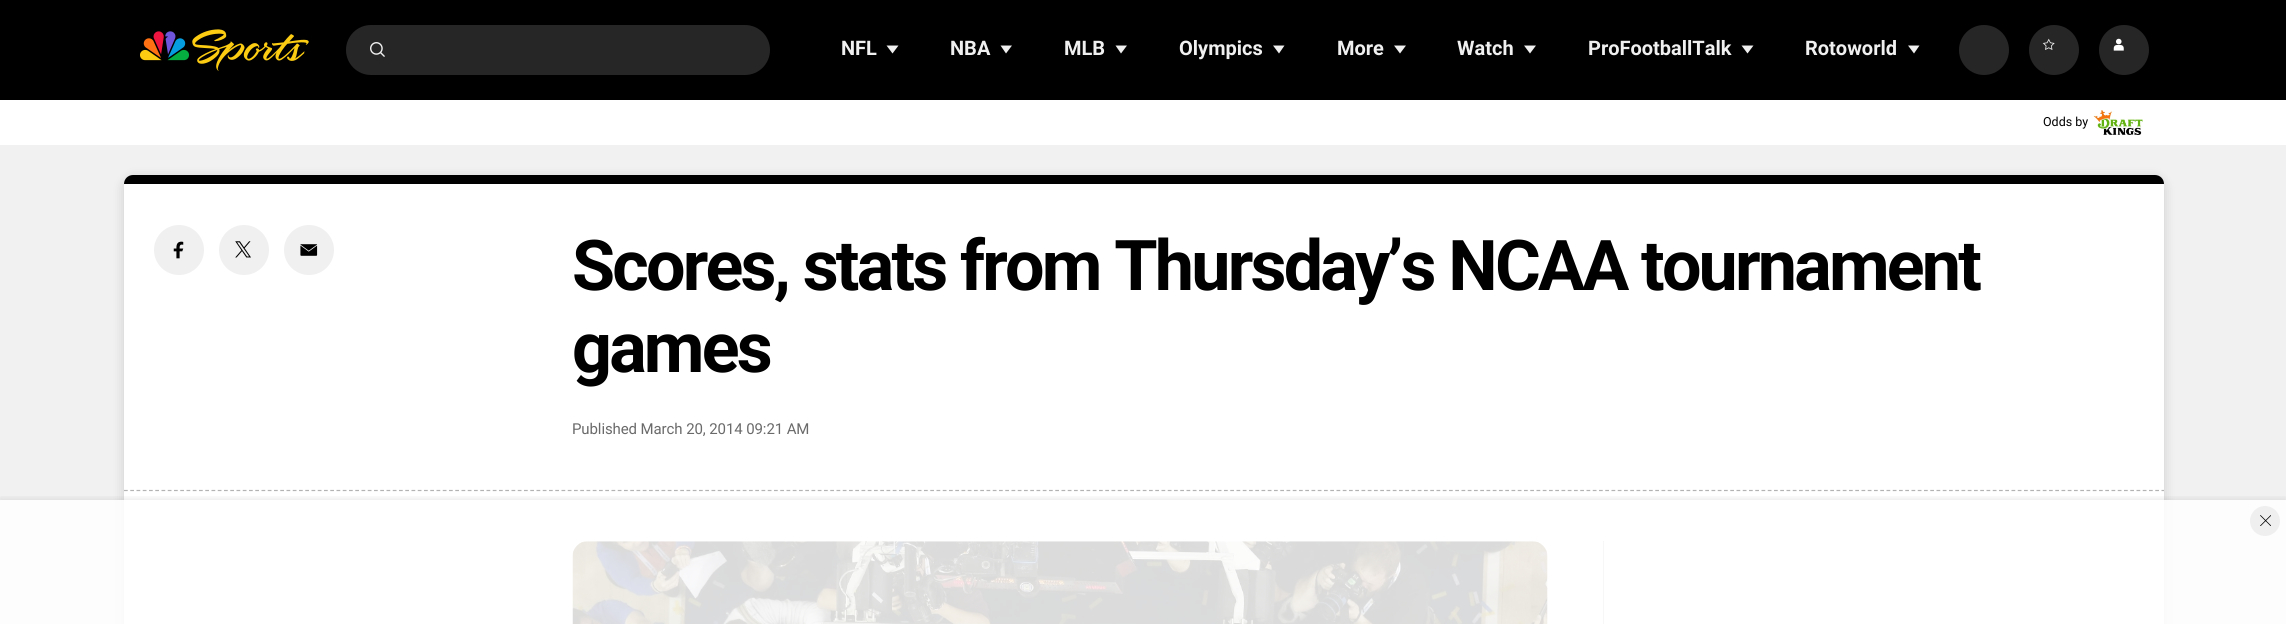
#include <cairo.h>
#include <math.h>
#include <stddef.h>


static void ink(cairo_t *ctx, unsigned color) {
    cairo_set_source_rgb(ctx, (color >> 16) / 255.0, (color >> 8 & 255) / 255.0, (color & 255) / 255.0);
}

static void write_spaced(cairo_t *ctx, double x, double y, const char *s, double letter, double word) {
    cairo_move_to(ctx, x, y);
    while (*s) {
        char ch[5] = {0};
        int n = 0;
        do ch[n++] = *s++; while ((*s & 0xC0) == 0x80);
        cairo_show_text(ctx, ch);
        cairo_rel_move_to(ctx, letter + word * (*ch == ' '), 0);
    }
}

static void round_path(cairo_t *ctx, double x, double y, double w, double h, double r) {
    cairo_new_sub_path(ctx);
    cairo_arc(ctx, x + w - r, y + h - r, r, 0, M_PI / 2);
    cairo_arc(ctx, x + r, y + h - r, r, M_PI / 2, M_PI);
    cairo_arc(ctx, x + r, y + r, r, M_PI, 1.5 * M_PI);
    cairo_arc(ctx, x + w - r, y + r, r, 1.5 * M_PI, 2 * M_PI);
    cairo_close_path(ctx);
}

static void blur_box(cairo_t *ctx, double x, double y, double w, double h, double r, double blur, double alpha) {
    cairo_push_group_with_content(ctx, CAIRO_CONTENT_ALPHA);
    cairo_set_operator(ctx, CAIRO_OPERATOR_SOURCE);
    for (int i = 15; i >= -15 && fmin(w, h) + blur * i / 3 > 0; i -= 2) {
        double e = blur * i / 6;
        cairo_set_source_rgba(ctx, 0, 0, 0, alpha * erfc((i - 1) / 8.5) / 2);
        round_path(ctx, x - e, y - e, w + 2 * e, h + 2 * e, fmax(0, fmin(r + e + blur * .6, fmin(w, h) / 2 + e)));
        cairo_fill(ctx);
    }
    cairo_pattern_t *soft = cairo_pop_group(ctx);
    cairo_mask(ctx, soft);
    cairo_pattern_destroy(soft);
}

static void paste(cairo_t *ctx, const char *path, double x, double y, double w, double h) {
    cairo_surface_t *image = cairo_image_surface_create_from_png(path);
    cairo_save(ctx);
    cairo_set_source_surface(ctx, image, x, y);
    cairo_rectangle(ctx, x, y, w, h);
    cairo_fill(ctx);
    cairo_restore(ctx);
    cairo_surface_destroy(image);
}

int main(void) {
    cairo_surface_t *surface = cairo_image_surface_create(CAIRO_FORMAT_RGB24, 2286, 624);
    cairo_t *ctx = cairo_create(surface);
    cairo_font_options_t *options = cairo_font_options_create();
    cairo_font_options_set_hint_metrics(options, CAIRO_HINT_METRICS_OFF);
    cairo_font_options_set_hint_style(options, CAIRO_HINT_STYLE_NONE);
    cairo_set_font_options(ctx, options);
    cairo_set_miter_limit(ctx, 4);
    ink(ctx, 0xF1F1F1);
    cairo_paint(ctx);
    ink(ctx, 0x000000);
    cairo_rectangle(ctx, 0, 0, 2286, 100);
    cairo_fill(ctx);
    paste(ctx, "media/1.png", 140, 29, 169, 42);
    ink(ctx, 0x262626);
    round_path(ctx, 346, 25, 424, 50, 25);
    cairo_fill(ctx);
    paste(ctx, "media/2.png", 370, 42, 15, 15);
    cairo_select_font_face(ctx, "Roboto", CAIRO_FONT_SLANT_NORMAL, CAIRO_FONT_WEIGHT_BOLD);
    cairo_set_font_size(ctx, 20);
    ink(ctx, 0xF0F0F0);
    cairo_move_to(ctx, 841, 55);
    cairo_show_text(ctx, "NFL");
    cairo_new_path(ctx);
    cairo_move_to(ctx, 892.5, 53.5);
    cairo_line_to(ctx, 886.5, 45.5);
    cairo_line_to(ctx, 898.5, 45.5);
    cairo_close_path(ctx);
    cairo_fill(ctx);
    cairo_move_to(ctx, 950, 55);
    cairo_show_text(ctx, "NBA");
    cairo_new_path(ctx);
    cairo_move_to(ctx, 1006, 53.5);
    cairo_line_to(ctx, 1000.5, 45.5);
    cairo_line_to(ctx, 1012, 45.5);
    cairo_close_path(ctx);
    cairo_fill(ctx);
    cairo_move_to(ctx, 1064, 55);
    cairo_show_text(ctx, "MLB");
    cairo_new_path(ctx);
    cairo_move_to(ctx, 1121, 53.5);
    cairo_line_to(ctx, 1115.5, 45.5);
    cairo_line_to(ctx, 1127, 45.5);
    cairo_close_path(ctx);
    cairo_fill(ctx);
    cairo_move_to(ctx, 1179, 55);
    cairo_show_text(ctx, "Olympics");
    cairo_new_path(ctx);
    cairo_move_to(ctx, 1279, 53.5);
    cairo_line_to(ctx, 1273, 45.5);
    cairo_line_to(ctx, 1284.5, 45.5);
    cairo_close_path(ctx);
    cairo_fill(ctx);
    cairo_move_to(ctx, 1337, 55);
    cairo_show_text(ctx, "More");
    cairo_new_path(ctx);
    cairo_move_to(ctx, 1400, 53.5);
    cairo_line_to(ctx, 1394, 45.5);
    cairo_line_to(ctx, 1406, 45.5);
    cairo_close_path(ctx);
    cairo_fill(ctx);
    cairo_move_to(ctx, 1457, 55);
    cairo_show_text(ctx, "Watch");
    cairo_new_path(ctx);
    cairo_move_to(ctx, 1530, 53.5);
    cairo_line_to(ctx, 1524, 45.5);
    cairo_line_to(ctx, 1536, 45.5);
    cairo_close_path(ctx);
    cairo_fill(ctx);
    cairo_move_to(ctx, 1588, 55);
    cairo_show_text(ctx, "ProFootballTalk");
    cairo_new_path(ctx);
    cairo_move_to(ctx, 1747.5, 53.5);
    cairo_line_to(ctx, 1741.5, 45.5);
    cairo_line_to(ctx, 1753.5, 45.5);
    cairo_close_path(ctx);
    cairo_fill(ctx);
    cairo_move_to(ctx, 1805, 55);
    cairo_show_text(ctx, "Rotoworld");
    cairo_new_path(ctx);
    cairo_move_to(ctx, 1914, 53.5);
    cairo_line_to(ctx, 1908, 45.5);
    cairo_line_to(ctx, 1919.5, 45.5);
    cairo_close_path(ctx);
    cairo_fill(ctx);
    ink(ctx, 0x262626);
    cairo_arc(ctx, 1984, 50, 25, 0, 2 * M_PI);
    cairo_fill(ctx);
    cairo_arc(ctx, 2054, 50, 25, 0, 2 * M_PI);
    cairo_fill(ctx);
    paste(ctx, "media/3.png", 2042, 38, 13, 12);
    cairo_arc(ctx, 2124, 50, 25, 0, 2 * M_PI);
    cairo_fill(ctx);
    paste(ctx, "media/4.png", 2113, 38, 11, 13);
    ink(ctx, 0xFFFFFF);
    cairo_rectangle(ctx, 0, 100, 2286, 45);
    cairo_fill(ctx);
    cairo_select_font_face(ctx, "Roboto", CAIRO_FONT_SLANT_NORMAL, CAIRO_FONT_WEIGHT_NORMAL);
    cairo_set_font_size(ctx, 12.5);
    ink(ctx, 0x000000);
    cairo_move_to(ctx, 2043, 126);
    cairo_show_text(ctx, "Odds by");
    paste(ctx, "media/5.png", 2093, 110, 50, 25);
    ink(ctx, 0x000000);
    blur_box(ctx, 124, 178, 2040, 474, 10, 6, 0.15);
    ink(ctx, 0xFFFFFF);
    round_path(ctx, 124, 175, 2040, 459, 10);
    cairo_fill(ctx);
    ink(ctx, 0x000000);
    cairo_new_path(ctx);
    cairo_move_to(ctx, 133, 175);
    cairo_line_to(ctx, 2155, 175);
    cairo_curve_to(ctx, 2160, 175, 2164, 179, 2164, 184);
    cairo_line_to(ctx, 124, 184);
    cairo_curve_to(ctx, 124, 179, 128, 175, 133, 175);
    cairo_close_path(ctx);
    cairo_fill(ctx);
    cairo_new_path(ctx);
    cairo_move_to(ctx, 124, 490.5);
    cairo_line_to(ctx, 2164, 490.5);
    ink(ctx, 0xB3B3B3);
    cairo_set_line_width(ctx, 1.2);
    cairo_set_dash(ctx, (double[]){3.75, 2.5}, 2, 0);
    cairo_stroke(ctx);
    ink(ctx, 0xF0F0F0);
    cairo_arc(ctx, 179, 250, 25, 0, 2 * M_PI);
    cairo_fill(ctx);
    paste(ctx, "media/6.png", 173, 241, 11, 18);
    cairo_arc(ctx, 244, 250, 25, 0, 2 * M_PI);
    cairo_fill(ctx);
    paste(ctx, "media/7.png", 235, 241, 16, 17);
    cairo_arc(ctx, 309, 250, 25, 0, 2 * M_PI);
    cairo_fill(ctx);
    paste(ctx, "media/8.png", 300, 244, 18, 12);
    cairo_select_font_face(ctx, "Roboto", CAIRO_FONT_SLANT_NORMAL, CAIRO_FONT_WEIGHT_BOLD);
    cairo_set_font_size(ctx, 70);
    ink(ctx, 0x000000);
    write_spaced(ctx, 572, 290, "Scores, stats from Thursday’s NCAA tournament", -2.8, 0);
    write_spaced(ctx, 572, 372, "games", -2.8, 0);
    cairo_select_font_face(ctx, "Roboto", CAIRO_FONT_SLANT_NORMAL, CAIRO_FONT_WEIGHT_NORMAL);
    cairo_set_font_size(ctx, 15);
    ink(ctx, 0x6A6A6A);
    write_spaced(ctx, 572, 434, "Published March 20, 2014 09:21 AM", -0.1, 0);
    paste(ctx, "media/9.png", 572, 541, 976, 83);
    ink(ctx, 0xCCCCCC);
    cairo_rectangle(ctx, 1603, 541, 1, 83);
    cairo_fill(ctx);
    cairo_save(ctx);
    cairo_rectangle(ctx, 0, 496, 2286, 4);
    cairo_clip(ctx);
    ink(ctx, 0x000000);
    blur_box(ctx, 0, 498, 2286, 125, 0, 2.5, 0.08);
    cairo_restore(ctx);
    cairo_set_source_rgba(ctx, 1, 1, 1, 0.85);
    cairo_rectangle(ctx, 0, 500, 2286, 124);
    cairo_fill(ctx);
    ink(ctx, 0xEFEFEF);
    cairo_arc(ctx, 2265, 521, 15, 0, 2 * M_PI);
    cairo_fill(ctx);
    paste(ctx, "media/10.png", 2260, 515, 11, 11);
    cairo_surface_write_to_png(surface, "image.png");
    cairo_font_options_destroy(options);
    cairo_destroy(ctx);
    cairo_surface_destroy(surface);
    return 0;
}
